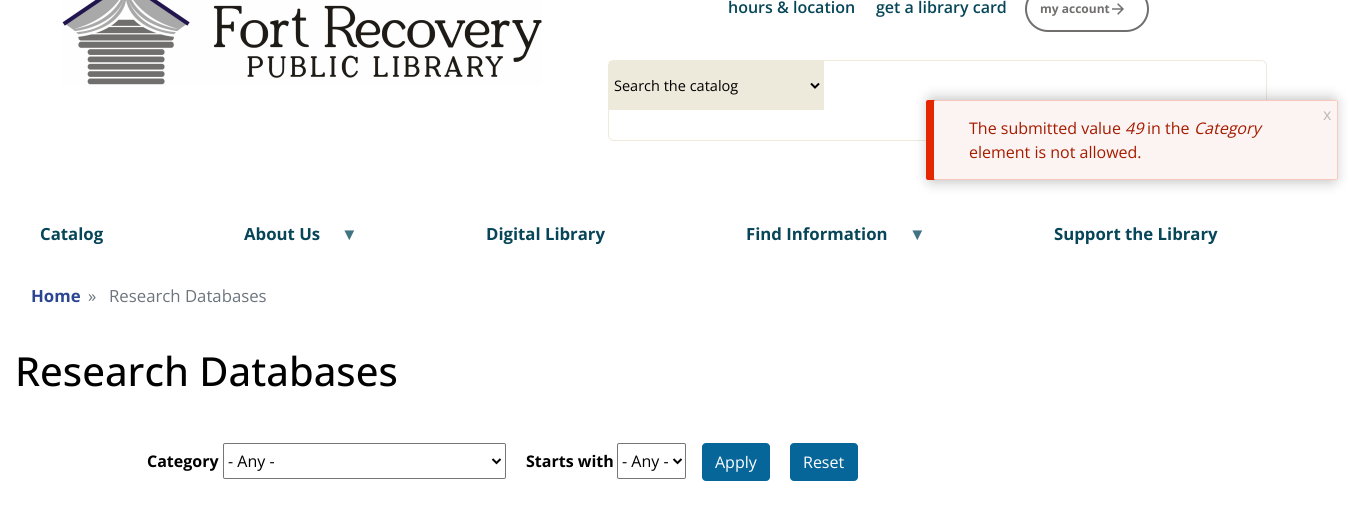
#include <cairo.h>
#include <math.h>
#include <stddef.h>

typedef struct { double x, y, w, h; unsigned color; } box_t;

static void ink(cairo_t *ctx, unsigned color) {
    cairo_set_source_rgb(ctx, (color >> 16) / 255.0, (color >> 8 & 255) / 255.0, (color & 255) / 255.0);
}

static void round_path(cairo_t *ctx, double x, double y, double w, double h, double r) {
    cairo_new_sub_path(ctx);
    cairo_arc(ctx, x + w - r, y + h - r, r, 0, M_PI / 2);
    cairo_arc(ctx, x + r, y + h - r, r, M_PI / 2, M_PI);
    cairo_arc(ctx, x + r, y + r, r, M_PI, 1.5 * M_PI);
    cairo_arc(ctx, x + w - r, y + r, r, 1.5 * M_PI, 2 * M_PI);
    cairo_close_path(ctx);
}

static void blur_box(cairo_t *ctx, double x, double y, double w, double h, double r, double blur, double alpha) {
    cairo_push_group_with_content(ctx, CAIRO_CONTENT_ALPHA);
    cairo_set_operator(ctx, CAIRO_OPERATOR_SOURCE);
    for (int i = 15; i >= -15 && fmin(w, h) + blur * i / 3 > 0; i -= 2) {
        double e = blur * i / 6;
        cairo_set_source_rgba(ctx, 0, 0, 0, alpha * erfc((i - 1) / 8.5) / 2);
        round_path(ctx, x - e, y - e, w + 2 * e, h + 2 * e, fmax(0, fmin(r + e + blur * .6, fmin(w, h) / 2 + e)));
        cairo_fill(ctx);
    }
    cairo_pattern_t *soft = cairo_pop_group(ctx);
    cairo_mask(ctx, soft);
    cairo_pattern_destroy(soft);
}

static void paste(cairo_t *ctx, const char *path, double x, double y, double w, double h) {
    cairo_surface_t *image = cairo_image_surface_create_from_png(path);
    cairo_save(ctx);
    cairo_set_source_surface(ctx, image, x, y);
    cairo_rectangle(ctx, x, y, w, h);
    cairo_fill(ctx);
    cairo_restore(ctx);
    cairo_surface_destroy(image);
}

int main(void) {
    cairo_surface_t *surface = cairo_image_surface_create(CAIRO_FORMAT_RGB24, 1348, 513);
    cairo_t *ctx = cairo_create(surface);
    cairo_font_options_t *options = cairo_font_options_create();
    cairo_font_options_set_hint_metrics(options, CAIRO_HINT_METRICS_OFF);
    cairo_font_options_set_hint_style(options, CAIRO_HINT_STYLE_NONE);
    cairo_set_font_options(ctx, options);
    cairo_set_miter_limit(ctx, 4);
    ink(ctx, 0xFFFFFF);
    cairo_paint(ctx);
    paste(ctx, "media/1.png", 62, 0, 480, 85);
    cairo_select_font_face(ctx, "Open Sans SemiBold", CAIRO_FONT_SLANT_NORMAL, CAIRO_FONT_WEIGHT_NORMAL);
    cairo_set_font_size(ctx, 16);
    ink(ctx, 0x074658);
    cairo_move_to(ctx, 728, 13);
    cairo_show_text(ctx, "hours & location");
    cairo_move_to(ctx, 876, 13);
    cairo_show_text(ctx, "get a library card");
    round_path(ctx, 1026, -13, 122, 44, 22);
    ink(ctx, 0x716F6E);
    cairo_stroke(ctx);
    cairo_select_font_face(ctx, "Open Sans", CAIRO_FONT_SLANT_NORMAL, CAIRO_FONT_WEIGHT_BOLD);
    cairo_set_font_size(ctx, 12);
    cairo_move_to(ctx, 1040, 13);
    cairo_show_text(ctx, "my account");
    paste(ctx, "media/2.png", 1112, 3, 12, 12);
    round_path(ctx, 608.5, 60.5, 658, 80, 5.5);
    ink(ctx, 0xEDEADC);
    cairo_set_line_width(ctx, 1);
    cairo_stroke(ctx);
    cairo_rectangle(ctx, 609, 61, 215, 49);
    cairo_fill(ctx);
    cairo_new_path(ctx);
    cairo_move_to(ctx, 811, 83.5);
    cairo_line_to(ctx, 815, 87.5);
    cairo_line_to(ctx, 819, 83.5);
    ink(ctx, 0x000000);
    cairo_set_line_width(ctx, 2);
    cairo_stroke(ctx);
    cairo_select_font_face(ctx, "Open Sans", CAIRO_FONT_SLANT_NORMAL, CAIRO_FONT_WEIGHT_NORMAL);
    cairo_set_font_size(ctx, 14.5);
    cairo_move_to(ctx, 614, 91);
    cairo_show_text(ctx, "Search the catalog");
    cairo_select_font_face(ctx, "Open Sans", CAIRO_FONT_SLANT_NORMAL, CAIRO_FONT_WEIGHT_BOLD);
    cairo_set_font_size(ctx, 16.75);
    ink(ctx, 0x074658);
    cairo_move_to(ctx, 40, 240);
    cairo_show_text(ctx, "Catalog");
    cairo_move_to(ctx, 244, 240);
    cairo_show_text(ctx, "About Us");
    cairo_select_font_face(ctx, "Liberation Sans", CAIRO_FONT_SLANT_NORMAL, CAIRO_FONT_WEIGHT_BOLD);
    ink(ctx, 0x417483);
    cairo_move_to(ctx, 341, 240);
    cairo_show_text(ctx, "▼");
    cairo_select_font_face(ctx, "Open Sans", CAIRO_FONT_SLANT_NORMAL, CAIRO_FONT_WEIGHT_BOLD);
    ink(ctx, 0x074658);
    cairo_move_to(ctx, 486, 240);
    cairo_show_text(ctx, "Digital Library");
    cairo_move_to(ctx, 746, 240);
    cairo_show_text(ctx, "Find Information");
    cairo_select_font_face(ctx, "Liberation Sans", CAIRO_FONT_SLANT_NORMAL, CAIRO_FONT_WEIGHT_BOLD);
    ink(ctx, 0x417483);
    cairo_move_to(ctx, 909, 240);
    cairo_show_text(ctx, "▼");
    cairo_select_font_face(ctx, "Open Sans", CAIRO_FONT_SLANT_NORMAL, CAIRO_FONT_WEIGHT_BOLD);
    ink(ctx, 0x074658);
    cairo_move_to(ctx, 1054, 240);
    cairo_show_text(ctx, "Support the Library");
    ink(ctx, 0x000000);
    blur_box(ctx, 930, 100, 404, 80, 2, 7.5, 0.3);
    ink(ctx, 0xE62600);
    cairo_new_path(ctx);
    cairo_move_to(ctx, 928, 100);
    cairo_curve_to(ctx, 927, 100, 926, 101, 926, 102);
    cairo_line_to(ctx, 926, 178);
    cairo_curve_to(ctx, 926, 179, 927, 180, 928, 180);
    cairo_line_to(ctx, 936, 180);
    cairo_curve_to(ctx, 935, 180, 934, 179, 934, 178);
    cairo_line_to(ctx, 934, 102);
    cairo_curve_to(ctx, 934, 101, 935, 100, 936, 100);
    cairo_close_path(ctx);
    cairo_fill(ctx);
    ink(ctx, 0xFCF4F2);
    round_path(ctx, 934, 100, 404, 80, 2);
    cairo_fill(ctx);
    {
        static const box_t items[] = {
            {935, 100, 402, 1, 0xF9C9BF},
            {1337, 101, 1, 78, 0xF9C9BF},
            {935, 179, 402, 1, 0xF9C9BF},
        };
        for (size_t i = 0; i < sizeof items / sizeof *items; i++) {
            ink(ctx, items[i].color);
            cairo_rectangle(ctx, items[i].x, items[i].y, items[i].w, items[i].h);
            cairo_fill(ctx);
        }
    }
    cairo_select_font_face(ctx, "Open Sans", CAIRO_FONT_SLANT_NORMAL, CAIRO_FONT_WEIGHT_NORMAL);
    cairo_set_font_size(ctx, 16);
    ink(ctx, 0xBDB7B6);
    cairo_move_to(ctx, 1323, 120);
    cairo_show_text(ctx, "x");
    ink(ctx, 0xA51B00);
    cairo_move_to(ctx, 969, 134);
    cairo_show_text(ctx, "The submitted value");
    cairo_select_font_face(ctx, "Open Sans", CAIRO_FONT_SLANT_ITALIC, CAIRO_FONT_WEIGHT_NORMAL);
    cairo_move_to(ctx, 1125, 134);
    cairo_show_text(ctx, "49");
    cairo_select_font_face(ctx, "Open Sans", CAIRO_FONT_SLANT_NORMAL, CAIRO_FONT_WEIGHT_NORMAL);
    cairo_move_to(ctx, 1147, 134);
    cairo_show_text(ctx, "in the");
    cairo_select_font_face(ctx, "Open Sans", CAIRO_FONT_SLANT_ITALIC, CAIRO_FONT_WEIGHT_NORMAL);
    cairo_move_to(ctx, 1194, 134);
    cairo_show_text(ctx, "Category");
    cairo_select_font_face(ctx, "Open Sans", CAIRO_FONT_SLANT_NORMAL, CAIRO_FONT_WEIGHT_NORMAL);
    cairo_move_to(ctx, 969, 158);
    cairo_show_text(ctx, "element is not allowed.");
    cairo_select_font_face(ctx, "Open Sans", CAIRO_FONT_SLANT_NORMAL, CAIRO_FONT_WEIGHT_BOLD);
    cairo_set_font_size(ctx, 16.75);
    ink(ctx, 0x2B4593);
    cairo_move_to(ctx, 31, 302);
    cairo_show_text(ctx, "Home");
    cairo_select_font_face(ctx, "Open Sans", CAIRO_FONT_SLANT_NORMAL, CAIRO_FONT_WEIGHT_NORMAL);
    ink(ctx, 0x6C757D);
    cairo_move_to(ctx, 88, 302);
    cairo_show_text(ctx, "»");
    cairo_move_to(ctx, 109, 302);
    cairo_show_text(ctx, "Research Databases");
    cairo_select_font_face(ctx, "Open Sans Medium", CAIRO_FONT_SLANT_NORMAL, CAIRO_FONT_WEIGHT_NORMAL);
    cairo_set_font_size(ctx, 40);
    ink(ctx, 0x000000);
    cairo_move_to(ctx, 15, 386);
    cairo_show_text(ctx, "Research Databases");
    cairo_select_font_face(ctx, "Open Sans", CAIRO_FONT_SLANT_NORMAL, CAIRO_FONT_WEIGHT_BOLD);
    cairo_set_font_size(ctx, 16);
    cairo_move_to(ctx, 147, 467);
    cairo_show_text(ctx, "Category");
    round_path(ctx, 223.5, 443.5, 282, 35, 1.5);
    ink(ctx, 0x767676);
    cairo_set_line_width(ctx, 1);
    cairo_stroke(ctx);
    cairo_new_path(ctx);
    cairo_move_to(ctx, 492.5, 459);
    cairo_line_to(ctx, 496.5, 463);
    cairo_line_to(ctx, 500.5, 459);
    ink(ctx, 0x000000);
    cairo_set_line_width(ctx, 2);
    cairo_stroke(ctx);
    cairo_select_font_face(ctx, "Open Sans", CAIRO_FONT_SLANT_NORMAL, CAIRO_FONT_WEIGHT_NORMAL);
    cairo_move_to(ctx, 228, 467);
    cairo_show_text(ctx, "- Any -");
    cairo_select_font_face(ctx, "Open Sans", CAIRO_FONT_SLANT_NORMAL, CAIRO_FONT_WEIGHT_BOLD);
    cairo_move_to(ctx, 526, 467);
    cairo_show_text(ctx, "Starts with");
    round_path(ctx, 617.5, 443.5, 68, 35, 1.5);
    ink(ctx, 0x767676);
    cairo_set_line_width(ctx, 1);
    cairo_stroke(ctx);
    cairo_new_path(ctx);
    cairo_move_to(ctx, 673.5, 459);
    cairo_line_to(ctx, 677.5, 463);
    cairo_line_to(ctx, 681.5, 459);
    ink(ctx, 0x000000);
    cairo_set_line_width(ctx, 2);
    cairo_stroke(ctx);
    cairo_select_font_face(ctx, "Open Sans", CAIRO_FONT_SLANT_NORMAL, CAIRO_FONT_WEIGHT_NORMAL);
    cairo_move_to(ctx, 622, 467);
    cairo_show_text(ctx, "- Any -");
    ink(ctx, 0x066699);
    round_path(ctx, 702.5, 443.5, 67, 37, 3.5);
    cairo_fill_preserve(ctx);
    cairo_set_line_width(ctx, 1);
    cairo_stroke(ctx);
    ink(ctx, 0xFFFFFF);
    cairo_move_to(ctx, 715, 468);
    cairo_show_text(ctx, "Apply");
    ink(ctx, 0x066699);
    round_path(ctx, 790.5, 443.5, 67, 37, 3.5);
    cairo_fill_preserve(ctx);
    cairo_stroke(ctx);
    ink(ctx, 0xFFFFFF);
    cairo_move_to(ctx, 803, 468);
    cairo_show_text(ctx, "Reset");
    cairo_surface_write_to_png(surface, "image.png");
    cairo_font_options_destroy(options);
    cairo_destroy(ctx);
    cairo_surface_destroy(surface);
    return 0;
}
